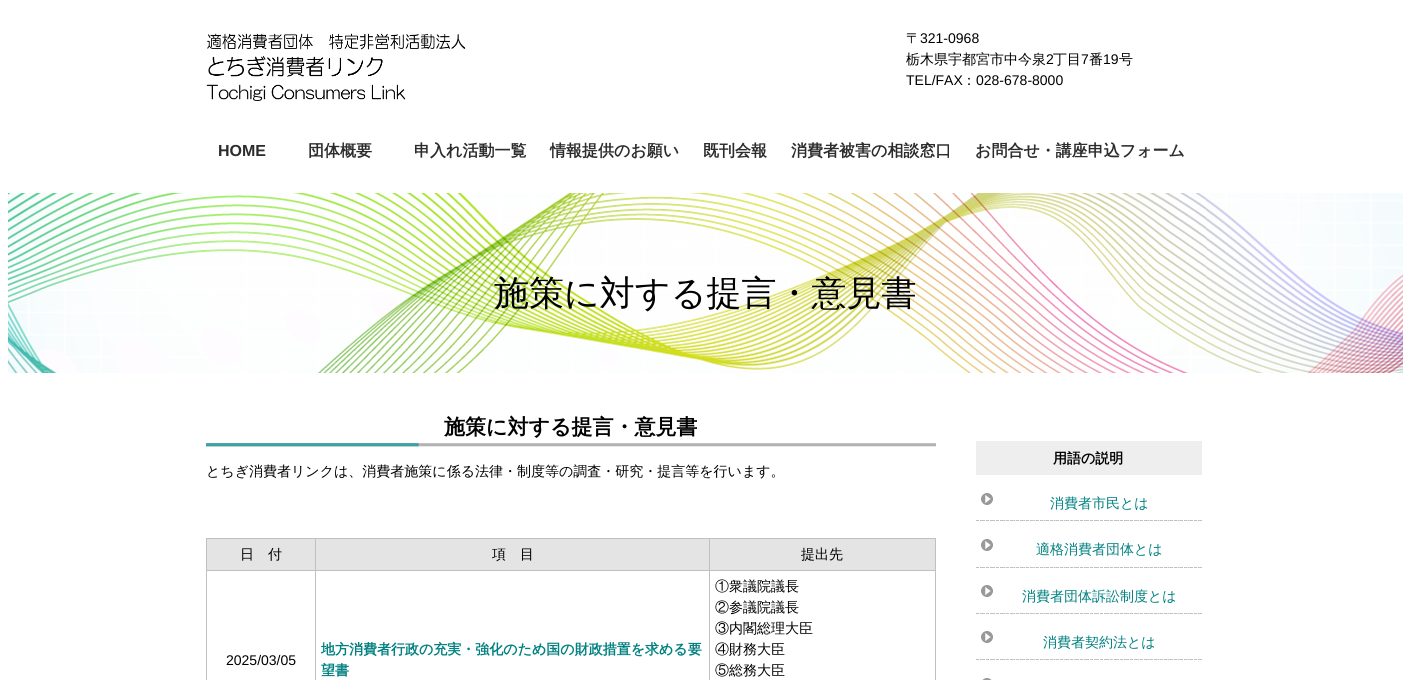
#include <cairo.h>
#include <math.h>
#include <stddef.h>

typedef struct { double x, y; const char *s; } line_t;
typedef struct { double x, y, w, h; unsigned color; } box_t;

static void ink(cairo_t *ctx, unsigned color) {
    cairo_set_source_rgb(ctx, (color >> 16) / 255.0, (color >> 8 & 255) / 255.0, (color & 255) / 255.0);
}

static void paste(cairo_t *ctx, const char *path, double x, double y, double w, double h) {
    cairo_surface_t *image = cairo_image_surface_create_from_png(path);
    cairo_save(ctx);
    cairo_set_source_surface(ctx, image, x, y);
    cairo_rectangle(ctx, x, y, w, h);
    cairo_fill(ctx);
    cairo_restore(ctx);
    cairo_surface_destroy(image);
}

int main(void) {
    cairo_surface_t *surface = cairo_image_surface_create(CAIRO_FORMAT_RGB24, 1411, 680);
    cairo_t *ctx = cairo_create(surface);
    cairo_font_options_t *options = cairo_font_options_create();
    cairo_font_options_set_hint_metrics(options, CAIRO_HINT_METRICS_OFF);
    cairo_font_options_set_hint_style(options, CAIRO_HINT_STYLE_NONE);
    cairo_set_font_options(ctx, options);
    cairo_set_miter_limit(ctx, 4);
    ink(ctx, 0xFFFFFF);
    cairo_paint(ctx);
    paste(ctx, "media/1.png", 206, 33, 260, 68);
    cairo_select_font_face(ctx, "WenQuanYi Zen Hei Medium", CAIRO_FONT_SLANT_NORMAL, CAIRO_FONT_WEIGHT_NORMAL);
    cairo_set_font_size(ctx, 14);
    ink(ctx, 0x000000);
    cairo_move_to(ctx, 906, 43);
    cairo_show_text(ctx, "〒");
    cairo_select_font_face(ctx, "Liberation Sans", CAIRO_FONT_SLANT_NORMAL, CAIRO_FONT_WEIGHT_NORMAL);
    cairo_move_to(ctx, 920, 43);
    cairo_show_text(ctx, "321-0968");
    cairo_select_font_face(ctx, "WenQuanYi Zen Hei Medium", CAIRO_FONT_SLANT_NORMAL, CAIRO_FONT_WEIGHT_NORMAL);
    cairo_move_to(ctx, 906, 64);
    cairo_show_text(ctx, "栃木県宇都宮市中今泉");
    cairo_select_font_face(ctx, "Liberation Sans", CAIRO_FONT_SLANT_NORMAL, CAIRO_FONT_WEIGHT_NORMAL);
    cairo_move_to(ctx, 1046, 64);
    cairo_show_text(ctx, "2");
    cairo_select_font_face(ctx, "WenQuanYi Zen Hei Medium", CAIRO_FONT_SLANT_NORMAL, CAIRO_FONT_WEIGHT_NORMAL);
    cairo_move_to(ctx, 1053, 64);
    cairo_show_text(ctx, "丁目");
    cairo_select_font_face(ctx, "Liberation Sans", CAIRO_FONT_SLANT_NORMAL, CAIRO_FONT_WEIGHT_NORMAL);
    cairo_move_to(ctx, 1081, 64);
    cairo_show_text(ctx, "7");
    cairo_select_font_face(ctx, "WenQuanYi Zen Hei Medium", CAIRO_FONT_SLANT_NORMAL, CAIRO_FONT_WEIGHT_NORMAL);
    cairo_move_to(ctx, 1089, 64);
    cairo_show_text(ctx, "番");
    cairo_select_font_face(ctx, "Liberation Sans", CAIRO_FONT_SLANT_NORMAL, CAIRO_FONT_WEIGHT_NORMAL);
    cairo_move_to(ctx, 1103, 64);
    cairo_show_text(ctx, "19");
    cairo_select_font_face(ctx, "WenQuanYi Zen Hei Medium", CAIRO_FONT_SLANT_NORMAL, CAIRO_FONT_WEIGHT_NORMAL);
    cairo_move_to(ctx, 1119, 64);
    cairo_show_text(ctx, "号");
    cairo_select_font_face(ctx, "Liberation Sans", CAIRO_FONT_SLANT_NORMAL, CAIRO_FONT_WEIGHT_NORMAL);
    cairo_move_to(ctx, 906, 85);
    cairo_show_text(ctx, "TEL/FAX");
    cairo_select_font_face(ctx, "WenQuanYi Zen Hei Medium", CAIRO_FONT_SLANT_NORMAL, CAIRO_FONT_WEIGHT_NORMAL);
    cairo_move_to(ctx, 962, 85);
    cairo_show_text(ctx, "：");
    cairo_select_font_face(ctx, "Liberation Sans", CAIRO_FONT_SLANT_NORMAL, CAIRO_FONT_WEIGHT_NORMAL);
    cairo_move_to(ctx, 976, 85);
    cairo_show_text(ctx, "028-678-8000");
    cairo_select_font_face(ctx, "Liberation Sans", CAIRO_FONT_SLANT_NORMAL, CAIRO_FONT_WEIGHT_BOLD);
    cairo_set_font_size(ctx, 16);
    ink(ctx, 0x2C2C2C);
    cairo_move_to(ctx, 218, 156);
    cairo_show_text(ctx, "HOME");
    cairo_select_font_face(ctx, "WenQuanYi Zen Hei", CAIRO_FONT_SLANT_NORMAL, CAIRO_FONT_WEIGHT_BOLD);
    {
        static const line_t items[] = {
            {308, 156, "団体概要"},
            {414, 156, "申入れ活動一覧"},
            {550, 156, "情報提供のお願い"},
            {703, 156, "既刊会報"},
            {791, 156, "消費者被害の相談窓口"},
            {975, 156, "お問合せ・講座申込フォーム"},
        };
        for (size_t i = 0; i < sizeof items / sizeof *items; i++) {
            cairo_move_to(ctx, items[i].x, items[i].y);
            cairo_show_text(ctx, items[i].s);
        }
    }
    paste(ctx, "media/2.png", 8, 193, 1395, 180);
    paste(ctx, "media/3.png", 206, 193, 1000, 180);
    cairo_select_font_face(ctx, "WenQuanYi Zen Hei Medium", CAIRO_FONT_SLANT_NORMAL, CAIRO_FONT_WEIGHT_NORMAL);
    cairo_set_font_size(ctx, 35);
    ink(ctx, 0x000000);
    cairo_move_to(ctx, 494, 305);
    cairo_show_text(ctx, "施策に対する提言・意見書");
    paste(ctx, "media/4.png", 206, 443, 730, 4);
    cairo_select_font_face(ctx, "WenQuanYi Zen Hei", CAIRO_FONT_SLANT_NORMAL, CAIRO_FONT_WEIGHT_BOLD);
    cairo_set_font_size(ctx, 21);
    cairo_move_to(ctx, 444, 434);
    cairo_show_text(ctx, "施策に対する提言・意見書");
    cairo_select_font_face(ctx, "WenQuanYi Zen Hei Medium", CAIRO_FONT_SLANT_NORMAL, CAIRO_FONT_WEIGHT_NORMAL);
    cairo_set_font_size(ctx, 14);
    cairo_move_to(ctx, 206, 476);
    cairo_show_text(ctx, "とちぎ消費者リンクは、消費者施策に係る法律・制度等の調査・研究・提言等を行います。");
    {
        static const box_t items[] = {
            {206, 538, 730, 1, 0xC0C0C0},
            {935, 538, 1, 142, 0xC0C0C0},
            {206, 538, 1, 142, 0xC0C0C0},
            {206, 570, 730, 1, 0xC0C0C0},
            {207, 539, 108, 31, 0xE4E4E4},
        };
        for (size_t i = 0; i < sizeof items / sizeof *items; i++) {
            ink(ctx, items[i].color);
            cairo_rectangle(ctx, items[i].x, items[i].y, items[i].w, items[i].h);
            cairo_fill(ctx);
        }
    }
    ink(ctx, 0x000000);
    cairo_move_to(ctx, 240, 559);
    cairo_show_text(ctx, "日　付");
    ink(ctx, 0xE4E4E4);
    cairo_rectangle(ctx, 316, 539, 393, 31);
    cairo_fill(ctx);
    ink(ctx, 0x000000);
    cairo_move_to(ctx, 492, 559);
    cairo_show_text(ctx, "項　目");
    ink(ctx, 0xE4E4E4);
    cairo_rectangle(ctx, 710, 539, 225, 31);
    cairo_fill(ctx);
    ink(ctx, 0x000000);
    cairo_move_to(ctx, 801, 559);
    cairo_show_text(ctx, "提出先");
    cairo_select_font_face(ctx, "Liberation Sans", CAIRO_FONT_SLANT_NORMAL, CAIRO_FONT_WEIGHT_NORMAL);
    cairo_move_to(ctx, 226, 665);
    cairo_show_text(ctx, "2025/03/05");
    ink(ctx, 0xC0C0C0);
    cairo_rectangle(ctx, 315, 538, 1, 142);
    cairo_fill(ctx);
    cairo_select_font_face(ctx, "WenQuanYi Zen Hei", CAIRO_FONT_SLANT_NORMAL, CAIRO_FONT_WEIGHT_BOLD);
    ink(ctx, 0x008080);
    cairo_move_to(ctx, 321, 654);
    cairo_show_text(ctx, "地方消費者行政の充実・強化のため国の財政措置を求める要");
    cairo_move_to(ctx, 321, 675);
    cairo_show_text(ctx, "望書");
    ink(ctx, 0xC0C0C0);
    cairo_rectangle(ctx, 709, 538, 1, 142);
    cairo_fill(ctx);
    cairo_select_font_face(ctx, "WenQuanYi Zen Hei Medium", CAIRO_FONT_SLANT_NORMAL, CAIRO_FONT_WEIGHT_NORMAL);
    ink(ctx, 0x000000);
    {
        static const line_t items[] = {
            {715, 591, "①衆議院議長"},
            {715, 612, "②参議院議長"},
            {715, 633, "③内閣総理大臣"},
            {715, 654, "④財務大臣"},
            {715, 675, "⑤総務大臣"},
        };
        for (size_t i = 0; i < sizeof items / sizeof *items; i++) {
            cairo_move_to(ctx, items[i].x, items[i].y);
            cairo_show_text(ctx, items[i].s);
        }
    }
    ink(ctx, 0xEEEEEE);
    cairo_rectangle(ctx, 976, 441, 226, 34);
    cairo_fill(ctx);
    cairo_select_font_face(ctx, "WenQuanYi Zen Hei", CAIRO_FONT_SLANT_NORMAL, CAIRO_FONT_WEIGHT_BOLD);
    ink(ctx, 0x000000);
    cairo_move_to(ctx, 1053, 463);
    cairo_show_text(ctx, "用語の説明");
    cairo_new_path(ctx);
    cairo_move_to(ctx, 976, 520.5);
    cairo_line_to(ctx, 1202, 520.5);
    ink(ctx, 0xC0C0C0);
    cairo_set_line_width(ctx, 1);
    cairo_set_dash(ctx, (double[]){3, 1.96}, 2, 0);
    cairo_stroke(ctx);
    paste(ctx, "media/5.png", 981, 493, 12, 12);
    cairo_new_path(ctx);
    cairo_move_to(ctx, 976, 520.5);
    cairo_line_to(ctx, 1202, 520.5);
    cairo_set_dash(ctx, (double[]){1, 1}, 2, 0);
    cairo_stroke(ctx);
    cairo_select_font_face(ctx, "WenQuanYi Zen Hei Medium", CAIRO_FONT_SLANT_NORMAL, CAIRO_FONT_WEIGHT_NORMAL);
    ink(ctx, 0x008080);
    cairo_move_to(ctx, 1050, 508);
    cairo_show_text(ctx, "消費者市民とは");
    cairo_new_path(ctx);
    cairo_move_to(ctx, 976, 567.5);
    cairo_line_to(ctx, 1202, 567.5);
    ink(ctx, 0xC0C0C0);
    cairo_set_dash(ctx, (double[]){3, 1.96}, 2, 0);
    cairo_stroke(ctx);
    paste(ctx, "media/5.png", 981, 539, 12, 12);
    cairo_new_path(ctx);
    cairo_move_to(ctx, 976, 567.5);
    cairo_line_to(ctx, 1202, 567.5);
    cairo_set_dash(ctx, (double[]){1, 1}, 2, 0);
    cairo_stroke(ctx);
    ink(ctx, 0x008080);
    cairo_move_to(ctx, 1036, 554);
    cairo_show_text(ctx, "適格消費者団体とは");
    cairo_new_path(ctx);
    cairo_move_to(ctx, 976, 613.5);
    cairo_line_to(ctx, 1202, 613.5);
    ink(ctx, 0xC0C0C0);
    cairo_set_dash(ctx, (double[]){3, 1.96}, 2, 0);
    cairo_stroke(ctx);
    paste(ctx, "media/5.png", 981, 585, 12, 12);
    cairo_new_path(ctx);
    cairo_move_to(ctx, 976, 613.5);
    cairo_line_to(ctx, 1202, 613.5);
    cairo_set_dash(ctx, (double[]){1, 1}, 2, 0);
    cairo_stroke(ctx);
    ink(ctx, 0x008080);
    cairo_move_to(ctx, 1022, 601);
    cairo_show_text(ctx, "消費者団体訴訟制度とは");
    cairo_new_path(ctx);
    cairo_move_to(ctx, 976, 659.5);
    cairo_line_to(ctx, 1202, 659.5);
    ink(ctx, 0xC0C0C0);
    cairo_set_dash(ctx, (double[]){3, 1.96}, 2, 0);
    cairo_stroke(ctx);
    paste(ctx, "media/5.png", 981, 631, 12, 12);
    cairo_new_path(ctx);
    cairo_move_to(ctx, 976, 659.5);
    cairo_line_to(ctx, 1202, 659.5);
    cairo_set_dash(ctx, (double[]){1, 1}, 2, 0);
    cairo_stroke(ctx);
    ink(ctx, 0x008080);
    cairo_move_to(ctx, 1043, 647);
    cairo_show_text(ctx, "消費者契約法とは");
    paste(ctx, "media/6.png", 982, 678, 10, 2);
    cairo_surface_write_to_png(surface, "image.png");
    cairo_font_options_destroy(options);
    cairo_destroy(ctx);
    cairo_surface_destroy(surface);
    return 0;
}
